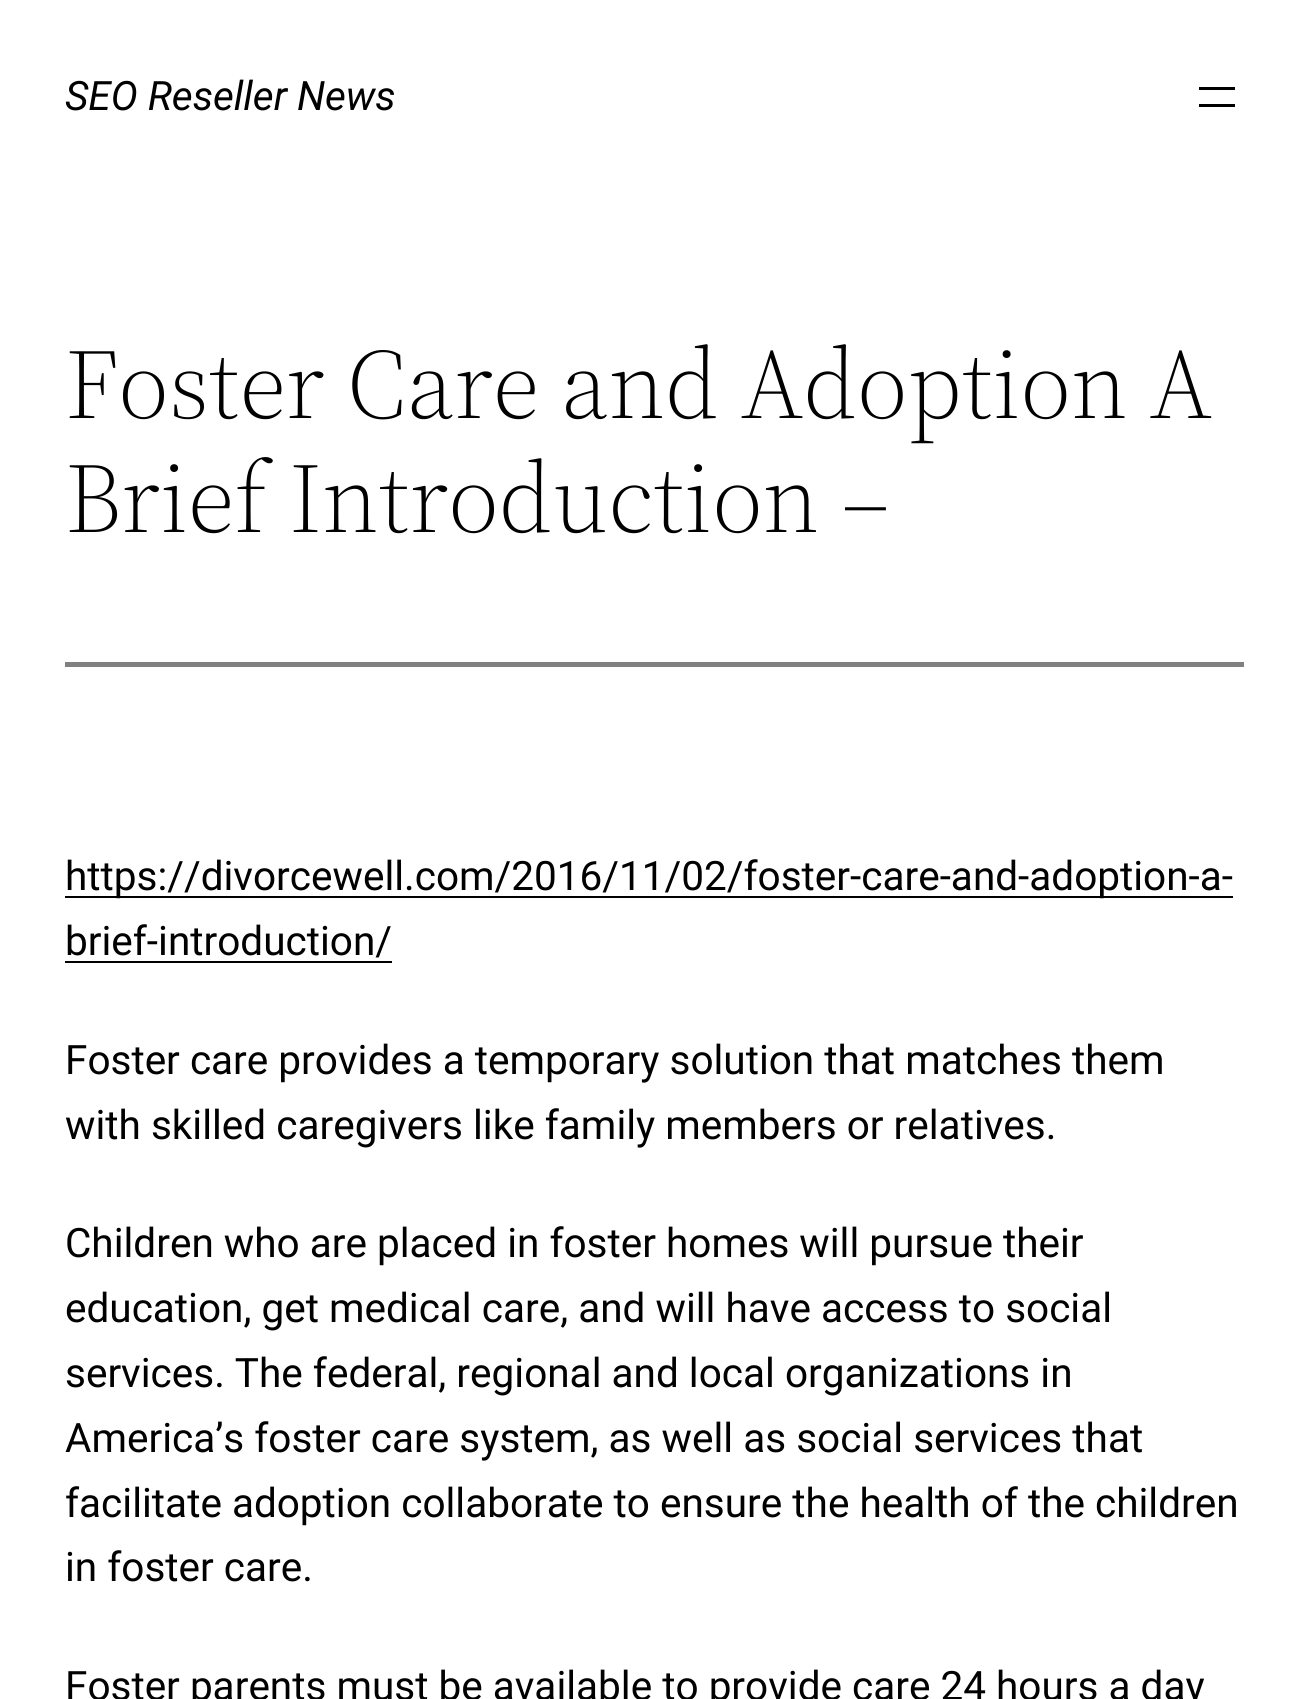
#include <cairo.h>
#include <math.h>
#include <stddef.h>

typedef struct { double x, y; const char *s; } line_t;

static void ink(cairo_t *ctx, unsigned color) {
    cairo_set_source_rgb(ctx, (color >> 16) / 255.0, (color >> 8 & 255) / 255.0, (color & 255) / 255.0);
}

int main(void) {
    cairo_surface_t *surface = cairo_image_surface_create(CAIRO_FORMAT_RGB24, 1308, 1699);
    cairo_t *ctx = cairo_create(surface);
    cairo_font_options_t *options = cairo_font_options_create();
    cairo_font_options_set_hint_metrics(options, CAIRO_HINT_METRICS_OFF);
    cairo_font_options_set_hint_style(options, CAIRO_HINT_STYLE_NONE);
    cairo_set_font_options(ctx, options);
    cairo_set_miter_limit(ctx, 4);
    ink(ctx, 0xFFFFFF);
    cairo_paint(ctx);
    cairo_select_font_face(ctx, "Roboto", CAIRO_FONT_SLANT_ITALIC, CAIRO_FONT_WEIGHT_NORMAL);
    cairo_set_font_size(ctx, 40.5);
    ink(ctx, 0x000000);
    cairo_move_to(ctx, 65, 110);
    cairo_show_text(ctx, "SEO Reseller News");
    cairo_rectangle(ctx, 1199, 87, 36, 3);
    cairo_fill(ctx);
    cairo_rectangle(ctx, 1199, 104, 36, 3);
    cairo_fill(ctx);
    cairo_select_font_face(ctx, "Source Serif 4 Light", CAIRO_FONT_SLANT_NORMAL, CAIRO_FONT_WEIGHT_NORMAL);
    cairo_set_font_size(ctx, 99);
    cairo_move_to(ctx, 65, 418);
    cairo_show_text(ctx, "Foster Care and Adoption A");
    cairo_move_to(ctx, 65, 532);
    cairo_show_text(ctx, "Brief Introduction –");
    ink(ctx, 0x808080);
    cairo_rectangle(ctx, 65, 662, 1179, 5);
    cairo_fill(ctx);
    ink(ctx, 0x000000);
    cairo_rectangle(ctx, 65, 896, 1168, 2);
    cairo_fill(ctx);
    cairo_select_font_face(ctx, "Roboto", CAIRO_FONT_SLANT_NORMAL, CAIRO_FONT_WEIGHT_NORMAL);
    cairo_set_font_size(ctx, 40.5);
    cairo_move_to(ctx, 65, 890);
    cairo_show_text(ctx, "https://divorcewell.com/2016/11/02/foster-care-and-adoption-a-");
    cairo_move_to(ctx, 65, 955);
    cairo_show_text(ctx, "brief-introduction/");
    cairo_rectangle(ctx, 65, 961, 327, 2);
    cairo_fill(ctx);
    {
        static const line_t items[] = {
            {65, 1074, "Foster care provides a temporary solution that matches them"},
            {65, 1139, "with skilled caregivers like family members or relatives."},
            {65, 1257, "Children who are placed in foster homes will pursue their"},
            {65, 1322, "education, get medical care, and will have access to social"},
            {65, 1387, "services. The federal, regional and local organizations in"},
            {65, 1452, "America’s foster care system, as well as social services that"},
            {65, 1517, "facilitate adoption collaborate to ensure the health of the children"},
            {65, 1581, "in foster care."},
            {65, 1700, "Foster parents must be available to provide care 24 hours a day"},
        };
        for (size_t i = 0; i < sizeof items / sizeof *items; i++) {
            cairo_move_to(ctx, items[i].x, items[i].y);
            cairo_show_text(ctx, items[i].s);
        }
    }
    cairo_surface_write_to_png(surface, "image.png");
    cairo_font_options_destroy(options);
    cairo_destroy(ctx);
    cairo_surface_destroy(surface);
    return 0;
}
